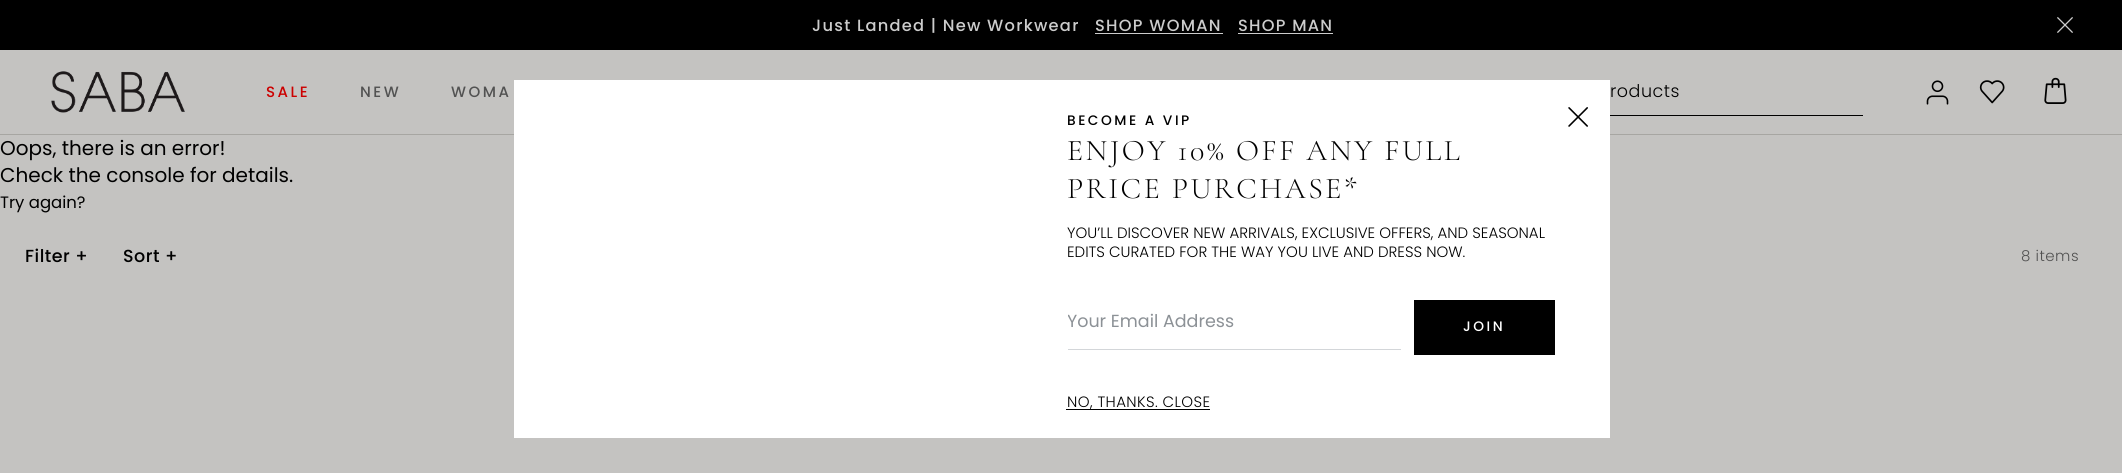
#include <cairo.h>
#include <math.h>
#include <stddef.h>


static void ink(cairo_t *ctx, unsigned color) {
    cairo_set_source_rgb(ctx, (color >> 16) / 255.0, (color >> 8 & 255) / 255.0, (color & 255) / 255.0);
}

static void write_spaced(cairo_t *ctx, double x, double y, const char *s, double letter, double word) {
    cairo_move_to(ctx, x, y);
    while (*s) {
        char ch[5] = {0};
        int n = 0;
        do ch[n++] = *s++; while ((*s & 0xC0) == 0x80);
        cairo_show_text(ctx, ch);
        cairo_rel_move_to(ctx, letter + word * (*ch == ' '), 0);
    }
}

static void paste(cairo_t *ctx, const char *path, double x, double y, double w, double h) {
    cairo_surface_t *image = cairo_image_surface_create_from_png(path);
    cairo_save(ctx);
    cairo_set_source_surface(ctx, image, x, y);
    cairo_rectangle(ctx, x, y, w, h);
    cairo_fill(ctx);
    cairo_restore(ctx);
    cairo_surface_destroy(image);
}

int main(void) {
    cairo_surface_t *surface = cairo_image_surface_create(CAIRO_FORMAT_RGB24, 2122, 473);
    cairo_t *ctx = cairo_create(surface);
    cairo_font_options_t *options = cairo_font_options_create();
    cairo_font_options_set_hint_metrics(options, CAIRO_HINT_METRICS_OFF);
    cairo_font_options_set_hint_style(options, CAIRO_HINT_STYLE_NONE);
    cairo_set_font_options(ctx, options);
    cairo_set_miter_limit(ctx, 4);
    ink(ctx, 0xC4C3C1);
    cairo_paint(ctx);
    ink(ctx, 0x000000);
    cairo_rectangle(ctx, 0, 0, 2122, 50);
    cairo_fill(ctx);
    cairo_select_font_face(ctx, "Poppins Medium", CAIRO_FONT_SLANT_NORMAL, CAIRO_FONT_WEIGHT_NORMAL);
    cairo_set_font_size(ctx, 16.25);
    ink(ctx, 0xCCCCCC);
    write_spaced(ctx, 812, 31, "Just Landed | New Workwear", 1.25, 0);
    write_spaced(ctx, 1095, 31, "SHOP WOMAN", 1.25, 0);
    cairo_rectangle(ctx, 1095, 33, 128, 1);
    cairo_fill(ctx);
    write_spaced(ctx, 1238, 31, "SHOP MAN", 1.25, 0);
    cairo_rectangle(ctx, 1238, 33, 95, 1);
    cairo_fill(ctx);
    paste(ctx, "media/1.png", 2057, 17, 16, 16);
    ink(ctx, 0xA7A6A2);
    cairo_rectangle(ctx, 0, 134, 2122, 1);
    cairo_fill(ctx);
    paste(ctx, "media/2.png", 51, 71, 134, 42);
    cairo_set_font_size(ctx, 15);
    ink(ctx, 0xCC0000);
    write_spaced(ctx, 266, 97, "SALE", 2.5, 0);
    ink(ctx, 0x525252);
    write_spaced(ctx, 360, 97, "NEW", 2.5, 0);
    write_spaced(ctx, 451, 97, "WOMA", 2.5, 0);
    ink(ctx, 0x000000);
    cairo_rectangle(ctx, 1610, 115, 253, 1);
    cairo_fill(ctx);
    cairo_select_font_face(ctx, "Poppins Light", CAIRO_FONT_SLANT_NORMAL, CAIRO_FONT_WEIGHT_NORMAL);
    cairo_set_font_size(ctx, 17.5);
    write_spaced(ctx, 1610, 97, "roducts", 0.5, 0);
    paste(ctx, "media/3.png", 1926, 80, 23, 25);
    paste(ctx, "media/4.png", 1979, 80, 26, 24);
    paste(ctx, "media/5.png", 2044, 77, 23, 27);
    cairo_select_font_face(ctx, "Poppins", CAIRO_FONT_SLANT_NORMAL, CAIRO_FONT_WEIGHT_NORMAL);
    cairo_set_font_size(ctx, 20);
    cairo_move_to(ctx, 0, 155);
    cairo_show_text(ctx, "Oops, there is an error!");
    cairo_move_to(ctx, 0, 182);
    cairo_show_text(ctx, "Check the console for details.");
    cairo_set_font_size(ctx, 16.5);
    cairo_move_to(ctx, 0, 208);
    cairo_show_text(ctx, "Try again?");
    ink(ctx, 0xFFFFFF);
    cairo_rectangle(ctx, 514, 80, 1096, 358);
    cairo_fill(ctx);
    cairo_select_font_face(ctx, "Poppins Medium", CAIRO_FONT_SLANT_NORMAL, CAIRO_FONT_WEIGHT_NORMAL);
    cairo_set_font_size(ctx, 13.75);
    ink(ctx, 0x000000);
    write_spaced(ctx, 1067, 125, "BECOME A VIP", 2.5, 0);
    cairo_select_font_face(ctx, "Cormorant Garamond Light", CAIRO_FONT_SLANT_NORMAL, CAIRO_FONT_WEIGHT_NORMAL);
    cairo_set_font_size(ctx, 30);
    write_spaced(ctx, 1067, 160, "ENJOY 10% OFF ANY FULL", 2.5, 0);
    write_spaced(ctx, 1067, 198, "PRICE PURCHASE*", 2.5, 0);
    cairo_select_font_face(ctx, "Poppins Light", CAIRO_FONT_SLANT_NORMAL, CAIRO_FONT_WEIGHT_NORMAL);
    cairo_set_font_size(ctx, 15);
    cairo_move_to(ctx, 1067, 238);
    cairo_show_text(ctx, "YOU’LL DISCOVER NEW ARRIVALS, EXCLUSIVE OFFERS, AND SEASONAL");
    cairo_move_to(ctx, 1067, 257);
    cairo_show_text(ctx, "EDITS CURATED FOR THE WAY YOU LIVE AND DRESS NOW.");
    cairo_save(ctx);
    cairo_rectangle(ctx, 1068, 309, 333, 26);
    cairo_clip(ctx);
    cairo_select_font_face(ctx, "Poppins", CAIRO_FONT_SLANT_NORMAL, CAIRO_FONT_WEIGHT_NORMAL);
    cairo_set_font_size(ctx, 17.5);
    ink(ctx, 0x8C9196);
    cairo_move_to(ctx, 1067, 327);
    cairo_show_text(ctx, "Your Email Address");
    cairo_restore(ctx);
    ink(ctx, 0xD3D6D9);
    cairo_rectangle(ctx, 1068, 349, 333, 1);
    cairo_fill(ctx);
    ink(ctx, 0x000000);
    cairo_rectangle(ctx, 1414, 300, 141, 55);
    cairo_fill(ctx);
    cairo_select_font_face(ctx, "Poppins Medium", CAIRO_FONT_SLANT_NORMAL, CAIRO_FONT_WEIGHT_NORMAL);
    cairo_set_font_size(ctx, 13.75);
    ink(ctx, 0xFFFFFF);
    write_spaced(ctx, 1463, 331, "JOIN", 2.5, 0);
    ink(ctx, 0x000000);
    cairo_rectangle(ctx, 1066, 409, 144, 1);
    cairo_fill(ctx);
    cairo_select_font_face(ctx, "Poppins Light", CAIRO_FONT_SLANT_NORMAL, CAIRO_FONT_WEIGHT_NORMAL);
    cairo_set_font_size(ctx, 15);
    write_spaced(ctx, 1067, 407, "NO, THANKS. CLOSE", 0.4, 0);
    paste(ctx, "media/6.png", 1568, 107, 20, 20);
    cairo_select_font_face(ctx, "Poppins Medium", CAIRO_FONT_SLANT_NORMAL, CAIRO_FONT_WEIGHT_NORMAL);
    cairo_set_font_size(ctx, 17.5);
    write_spaced(ctx, 25, 262, "Filter +", 0.5, 0);
    write_spaced(ctx, 123, 262, "Sort +", 0.5, 0);
    cairo_select_font_face(ctx, "Poppins Light", CAIRO_FONT_SLANT_NORMAL, CAIRO_FONT_WEIGHT_NORMAL);
    cairo_set_font_size(ctx, 15);
    ink(ctx, 0x525252);
    write_spaced(ctx, 2021, 261, "8 items", 0.5, 0);
    cairo_surface_write_to_png(surface, "image.png");
    cairo_font_options_destroy(options);
    cairo_destroy(ctx);
    cairo_surface_destroy(surface);
    return 0;
}
